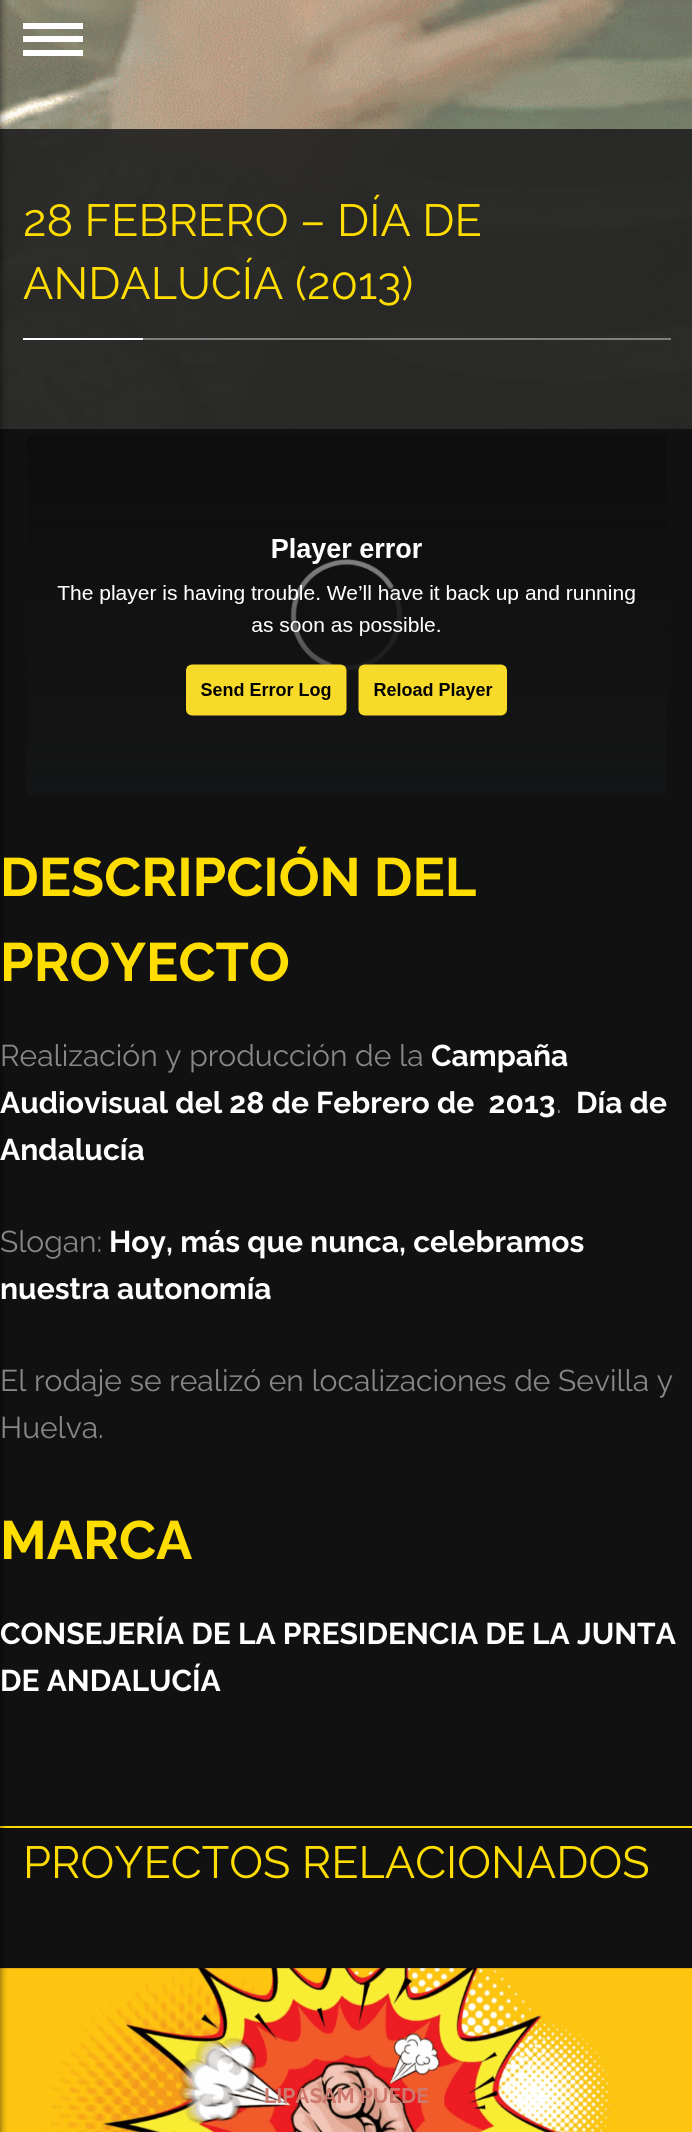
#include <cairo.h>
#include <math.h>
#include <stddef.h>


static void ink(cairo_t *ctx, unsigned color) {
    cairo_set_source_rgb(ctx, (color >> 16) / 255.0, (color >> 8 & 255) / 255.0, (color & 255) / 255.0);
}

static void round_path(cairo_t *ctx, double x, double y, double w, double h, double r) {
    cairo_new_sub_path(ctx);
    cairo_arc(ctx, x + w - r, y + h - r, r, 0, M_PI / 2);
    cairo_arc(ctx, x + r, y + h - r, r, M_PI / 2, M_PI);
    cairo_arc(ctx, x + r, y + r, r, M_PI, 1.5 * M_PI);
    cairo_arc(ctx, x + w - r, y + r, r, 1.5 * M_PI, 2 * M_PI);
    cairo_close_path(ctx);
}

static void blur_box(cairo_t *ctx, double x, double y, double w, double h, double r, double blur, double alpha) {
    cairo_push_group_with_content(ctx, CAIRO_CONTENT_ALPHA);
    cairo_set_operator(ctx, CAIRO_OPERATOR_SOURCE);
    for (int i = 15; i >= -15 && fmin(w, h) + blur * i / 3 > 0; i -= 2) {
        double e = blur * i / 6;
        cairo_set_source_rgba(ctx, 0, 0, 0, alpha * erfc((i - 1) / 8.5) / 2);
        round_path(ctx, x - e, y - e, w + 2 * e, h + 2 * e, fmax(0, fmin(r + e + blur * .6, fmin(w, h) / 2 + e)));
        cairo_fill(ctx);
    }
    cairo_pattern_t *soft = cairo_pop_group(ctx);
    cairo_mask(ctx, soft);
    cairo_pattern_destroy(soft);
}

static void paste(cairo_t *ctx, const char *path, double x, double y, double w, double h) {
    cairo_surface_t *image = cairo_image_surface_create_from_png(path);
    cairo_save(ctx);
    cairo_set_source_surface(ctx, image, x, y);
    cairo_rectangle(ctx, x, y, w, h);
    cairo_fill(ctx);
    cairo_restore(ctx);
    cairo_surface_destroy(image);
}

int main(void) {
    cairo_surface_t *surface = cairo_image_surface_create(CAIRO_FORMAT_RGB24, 692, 2132);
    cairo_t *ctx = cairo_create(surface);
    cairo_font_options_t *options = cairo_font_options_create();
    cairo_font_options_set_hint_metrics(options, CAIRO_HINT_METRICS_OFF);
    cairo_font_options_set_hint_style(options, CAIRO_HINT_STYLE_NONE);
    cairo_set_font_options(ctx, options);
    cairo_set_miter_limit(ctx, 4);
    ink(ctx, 0x111111);
    cairo_paint(ctx);
    paste(ctx, "media/1.png", 0, 0, 692, 429);
    cairo_set_source_rgba(ctx, 0.129, 0.129, 0.129, 0.9);
    cairo_rectangle(ctx, 0, 129, 692, 300);
    cairo_fill(ctx);
    ink(ctx, 0xFFDD00);
    cairo_rectangle(ctx, 0, 1826, 692, 2);
    cairo_fill(ctx);
    paste(ctx, "media/3.png", 0, 1968, 692, 164);
    ink(ctx, 0x000000);
    blur_box(ctx, -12, 0, 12, 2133, 0, 4, 0.64);
    ink(ctx, 0xFFFFFF);
    cairo_rectangle(ctx, 23, 23, 60, 6);
    cairo_fill(ctx);
    cairo_rectangle(ctx, 23, 36, 60, 6);
    cairo_fill(ctx);
    cairo_rectangle(ctx, 23, 50, 60, 6);
    cairo_fill(ctx);
    cairo_set_source_rgba(ctx, 1, 1, 1, 0.4);
    cairo_rectangle(ctx, 143, 338, 528, 2);
    cairo_fill(ctx);
    cairo_select_font_face(ctx, "Raleway", CAIRO_FONT_SLANT_NORMAL, CAIRO_FONT_WEIGHT_NORMAL);
    cairo_set_font_size(ctx, 45);
    ink(ctx, 0xFFDD00);
    cairo_move_to(ctx, 23, 236);
    cairo_show_text(ctx, "28 FEBRERO – DÍA DE");
    cairo_move_to(ctx, 23, 299);
    cairo_show_text(ctx, "ANDALUCÍA (2013)");
    ink(ctx, 0xFFFFFF);
    cairo_rectangle(ctx, 23, 338, 120, 2);
    cairo_fill(ctx);
    paste(ctx, "media/2.png", 27, 435, 639, 360);
    cairo_select_font_face(ctx, "Raleway", CAIRO_FONT_SLANT_NORMAL, CAIRO_FONT_WEIGHT_BOLD);
    cairo_set_font_size(ctx, 54);
    ink(ctx, 0xFFDD00);
    cairo_move_to(ctx, 0, 896);
    cairo_show_text(ctx, "DESCRIPCIÓN DEL");
    cairo_move_to(ctx, 0, 981);
    cairo_show_text(ctx, "PROYECTO");
    cairo_select_font_face(ctx, "Raleway", CAIRO_FONT_SLANT_NORMAL, CAIRO_FONT_WEIGHT_NORMAL);
    cairo_set_font_size(ctx, 30);
    ink(ctx, 0x878787);
    cairo_move_to(ctx, 0, 1066);
    cairo_show_text(ctx, "Realización y producción de la");
    cairo_select_font_face(ctx, "Raleway", CAIRO_FONT_SLANT_NORMAL, CAIRO_FONT_WEIGHT_BOLD);
    ink(ctx, 0xFFFFFF);
    cairo_move_to(ctx, 431, 1066);
    cairo_show_text(ctx, "Campaña");
    cairo_move_to(ctx, 0, 1113);
    cairo_show_text(ctx, "Audiovisual del 28 de Febrero de  2013");
    cairo_select_font_face(ctx, "Raleway", CAIRO_FONT_SLANT_NORMAL, CAIRO_FONT_WEIGHT_NORMAL);
    ink(ctx, 0x878787);
    cairo_move_to(ctx, 556, 1113);
    cairo_show_text(ctx, ".");
    cairo_select_font_face(ctx, "Raleway", CAIRO_FONT_SLANT_NORMAL, CAIRO_FONT_WEIGHT_BOLD);
    ink(ctx, 0xFFFFFF);
    cairo_move_to(ctx, 576, 1113);
    cairo_show_text(ctx, "Día de");
    cairo_move_to(ctx, 0, 1160);
    cairo_show_text(ctx, "Andalucía");
    cairo_select_font_face(ctx, "Raleway", CAIRO_FONT_SLANT_NORMAL, CAIRO_FONT_WEIGHT_NORMAL);
    ink(ctx, 0x878787);
    cairo_move_to(ctx, 0, 1252);
    cairo_show_text(ctx, "Slogan:");
    cairo_select_font_face(ctx, "Raleway", CAIRO_FONT_SLANT_NORMAL, CAIRO_FONT_WEIGHT_BOLD);
    ink(ctx, 0xFFFFFF);
    cairo_move_to(ctx, 109, 1252);
    cairo_show_text(ctx, "Hoy, más que nunca, celebramos");
    cairo_move_to(ctx, 0, 1299);
    cairo_show_text(ctx, "nuestra autonomía");
    cairo_select_font_face(ctx, "Raleway", CAIRO_FONT_SLANT_NORMAL, CAIRO_FONT_WEIGHT_NORMAL);
    ink(ctx, 0x878787);
    cairo_move_to(ctx, 0, 1391);
    cairo_show_text(ctx, "El rodaje se realizó en localizaciones de Sevilla y");
    cairo_move_to(ctx, 0, 1438);
    cairo_show_text(ctx, "Huelva.");
    cairo_select_font_face(ctx, "Raleway", CAIRO_FONT_SLANT_NORMAL, CAIRO_FONT_WEIGHT_BOLD);
    cairo_set_font_size(ctx, 54);
    ink(ctx, 0xFFDD00);
    cairo_move_to(ctx, 0, 1559);
    cairo_show_text(ctx, "MARCA");
    cairo_set_font_size(ctx, 30);
    ink(ctx, 0xFFFFFF);
    cairo_move_to(ctx, 0, 1644);
    cairo_show_text(ctx, "CONSEJERÍA DE LA PRESIDENCIA DE LA JUNTA");
    cairo_move_to(ctx, 0, 1691);
    cairo_show_text(ctx, "DE ANDALUCÍA");
    cairo_select_font_face(ctx, "Raleway", CAIRO_FONT_SLANT_NORMAL, CAIRO_FONT_WEIGHT_NORMAL);
    cairo_set_font_size(ctx, 45);
    ink(ctx, 0xFFDD00);
    cairo_move_to(ctx, 23, 1878);
    cairo_show_text(ctx, "PROYECTOS RELACIONADOS");
    cairo_select_font_face(ctx, "Raleway", CAIRO_FONT_SLANT_NORMAL, CAIRO_FONT_WEIGHT_BOLD);
    cairo_set_font_size(ctx, 21);
    ink(ctx, 0xCE796E);
    cairo_move_to(ctx, 264, 2103);
    cairo_show_text(ctx, "LIPASAM PUEDE");
    cairo_surface_write_to_png(surface, "image.png");
    cairo_font_options_destroy(options);
    cairo_destroy(ctx);
    cairo_surface_destroy(surface);
    return 0;
}
